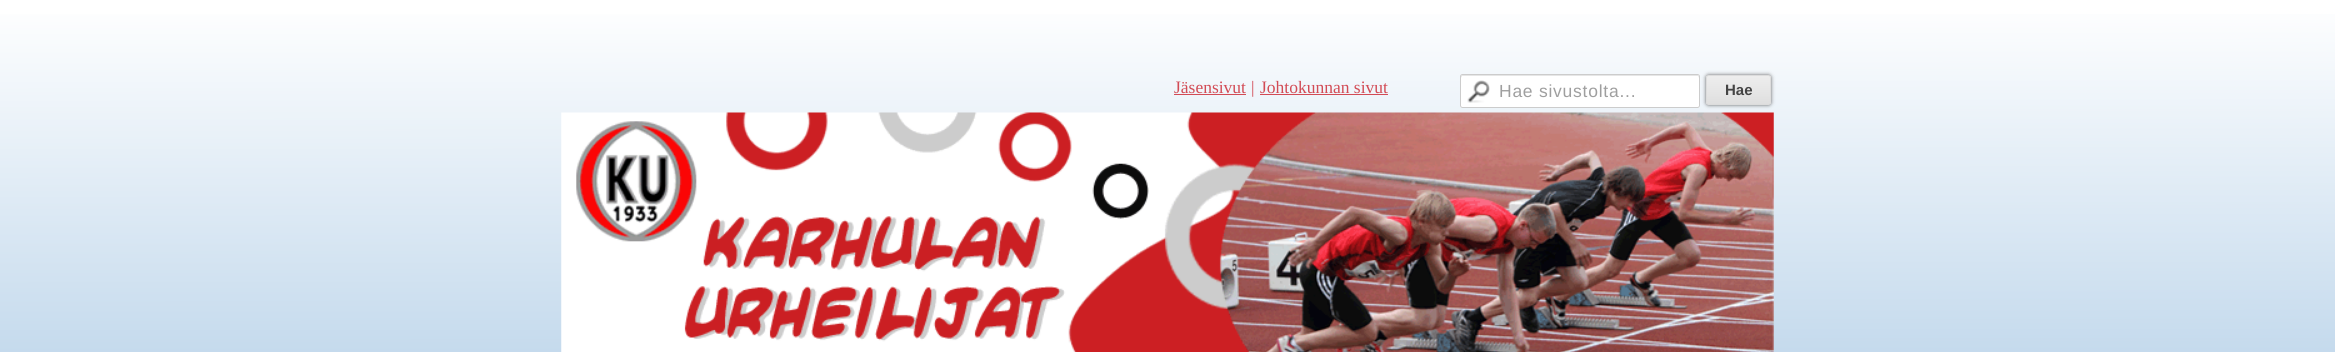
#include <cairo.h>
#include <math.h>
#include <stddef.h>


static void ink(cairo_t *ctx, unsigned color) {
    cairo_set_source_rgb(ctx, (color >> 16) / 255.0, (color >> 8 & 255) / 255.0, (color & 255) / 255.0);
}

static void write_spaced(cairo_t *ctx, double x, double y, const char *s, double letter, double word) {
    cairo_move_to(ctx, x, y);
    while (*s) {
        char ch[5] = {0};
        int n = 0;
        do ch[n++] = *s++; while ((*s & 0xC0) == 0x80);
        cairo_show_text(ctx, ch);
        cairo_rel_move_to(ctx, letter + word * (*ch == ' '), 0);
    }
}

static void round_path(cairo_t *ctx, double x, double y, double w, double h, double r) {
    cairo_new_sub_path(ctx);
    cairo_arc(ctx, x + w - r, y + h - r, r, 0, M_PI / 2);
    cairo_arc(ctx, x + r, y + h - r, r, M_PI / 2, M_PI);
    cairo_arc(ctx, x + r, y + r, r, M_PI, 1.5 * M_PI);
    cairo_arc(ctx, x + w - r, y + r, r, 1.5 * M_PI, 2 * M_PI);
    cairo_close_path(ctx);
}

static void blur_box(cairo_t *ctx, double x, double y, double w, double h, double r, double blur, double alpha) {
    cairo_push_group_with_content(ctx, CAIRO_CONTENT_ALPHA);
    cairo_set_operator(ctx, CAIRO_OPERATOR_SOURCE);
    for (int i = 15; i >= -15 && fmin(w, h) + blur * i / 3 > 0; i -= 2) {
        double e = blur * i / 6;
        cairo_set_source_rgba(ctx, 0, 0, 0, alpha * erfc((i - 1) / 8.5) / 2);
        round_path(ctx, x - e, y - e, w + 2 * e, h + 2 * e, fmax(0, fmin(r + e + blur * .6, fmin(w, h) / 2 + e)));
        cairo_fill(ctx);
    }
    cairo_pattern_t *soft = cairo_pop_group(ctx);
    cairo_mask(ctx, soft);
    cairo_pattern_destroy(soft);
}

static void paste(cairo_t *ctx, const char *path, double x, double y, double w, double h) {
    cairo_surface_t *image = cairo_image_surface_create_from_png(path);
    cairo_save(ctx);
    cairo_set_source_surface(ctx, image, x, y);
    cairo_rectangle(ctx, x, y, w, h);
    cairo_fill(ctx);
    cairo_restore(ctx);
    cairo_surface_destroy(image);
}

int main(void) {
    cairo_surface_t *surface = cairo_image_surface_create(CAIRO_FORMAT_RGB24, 2335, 352);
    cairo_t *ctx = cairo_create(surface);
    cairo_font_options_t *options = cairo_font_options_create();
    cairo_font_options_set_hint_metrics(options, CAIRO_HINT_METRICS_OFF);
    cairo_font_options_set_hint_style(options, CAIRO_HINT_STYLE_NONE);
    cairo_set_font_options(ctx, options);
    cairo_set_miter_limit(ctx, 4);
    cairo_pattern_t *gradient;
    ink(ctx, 0xFFFFFF);
    cairo_paint(ctx);
    gradient = cairo_pattern_create_linear(1167, 0, 1168, 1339);
    cairo_pattern_add_color_stop_rgba(gradient, 0, 1, 1, 1, 1);
    cairo_pattern_add_color_stop_rgba(gradient, 0.42, 0.635, 0.769, 0.886, 1);
    cairo_pattern_add_color_stop_rgba(gradient, 1, 0.635, 0.769, 0.886, 1);
    cairo_set_source(ctx, gradient);
    cairo_pattern_destroy(gradient);
    cairo_rectangle(ctx, 0, 14, 2335, 338);
    cairo_fill(ctx);
    cairo_select_font_face(ctx, "Liberation Serif", CAIRO_FONT_SLANT_NORMAL, CAIRO_FONT_WEIGHT_NORMAL);
    cairo_set_font_size(ctx, 17.5);
    ink(ctx, 0xD24B55);
    cairo_move_to(ctx, 1174, 93);
    cairo_show_text(ctx, "Jäsensivut");
    cairo_rectangle(ctx, 1174, 94, 72, 1);
    cairo_fill(ctx);
    cairo_move_to(ctx, 1251, 93);
    cairo_show_text(ctx, "|");
    cairo_move_to(ctx, 1260, 93);
    cairo_show_text(ctx, "Johtokunnan sivut");
    cairo_rectangle(ctx, 1260, 94, 128, 1);
    cairo_fill(ctx);
    ink(ctx, 0xFFFFFF);
    round_path(ctx, 1460, 74, 240, 34, 2.5);
    cairo_fill(ctx);
    paste(ctx, "media/1.png", 1467, 80, 23, 23);
    ink(ctx, 0xE6E6E6);
    cairo_new_path(ctx);
    cairo_move_to(ctx, 1462, 76);
    cairo_line_to(ctx, 1698, 76);
    cairo_line_to(ctx, 1699, 78);
    cairo_curve_to(ctx, 1699, 77, 1699, 76, 1698, 75);
    cairo_line_to(ctx, 1462, 75);
    cairo_line_to(ctx, 1461, 76);
    cairo_line_to(ctx, 1461, 78);
    cairo_close_path(ctx);
    cairo_fill(ctx);
    round_path(ctx, 1460.5, 74.5, 239, 33, 2);
    ink(ctx, 0xCCCCCC);
    cairo_set_line_width(ctx, 1);
    cairo_stroke(ctx);
    cairo_select_font_face(ctx, "Liberation Sans", CAIRO_FONT_SLANT_NORMAL, CAIRO_FONT_WEIGHT_NORMAL);
    ink(ctx, 0x9F9F9F);
    write_spaced(ctx, 1499, 97, "Hae sivustolta...", 0.75, 0);
    ink(ctx, 0x666666);
    blur_box(ctx, 1706, 75, 65, 30, 2.5, 2, 1);
    cairo_save(ctx);
    round_path(ctx, 1706, 75, 65, 30, 2.5);
    cairo_clip(ctx);
    gradient = cairo_pattern_create_linear(1708, 76, 1708, 104);
    cairo_pattern_add_color_stop_rgba(gradient, 0.05, 0.929, 0.929, 0.929, 1);
    cairo_pattern_add_color_stop_rgba(gradient, 1, 0.875, 0.875, 0.875, 1);
    cairo_set_source(ctx, gradient);
    cairo_pattern_destroy(gradient);
    cairo_rectangle(ctx, 1706, 76, 65, 28);
    cairo_fill(ctx);
    cairo_restore(ctx);
    round_path(ctx, 1706.5, 75.5, 64, 29, 2);
    ink(ctx, 0xDCDCDC);
    cairo_stroke(ctx);
    cairo_select_font_face(ctx, "Liberation Sans", CAIRO_FONT_SLANT_NORMAL, CAIRO_FONT_WEIGHT_BOLD);
    cairo_set_font_size(ctx, 15);
    ink(ctx, 0x444444);
    cairo_move_to(ctx, 1725, 95);
    cairo_show_text(ctx, "Hae");
    paste(ctx, "media/2.png", 561, 112, 1213, 240);
    cairo_surface_write_to_png(surface, "image.png");
    cairo_font_options_destroy(options);
    cairo_destroy(ctx);
    cairo_surface_destroy(surface);
    return 0;
}
